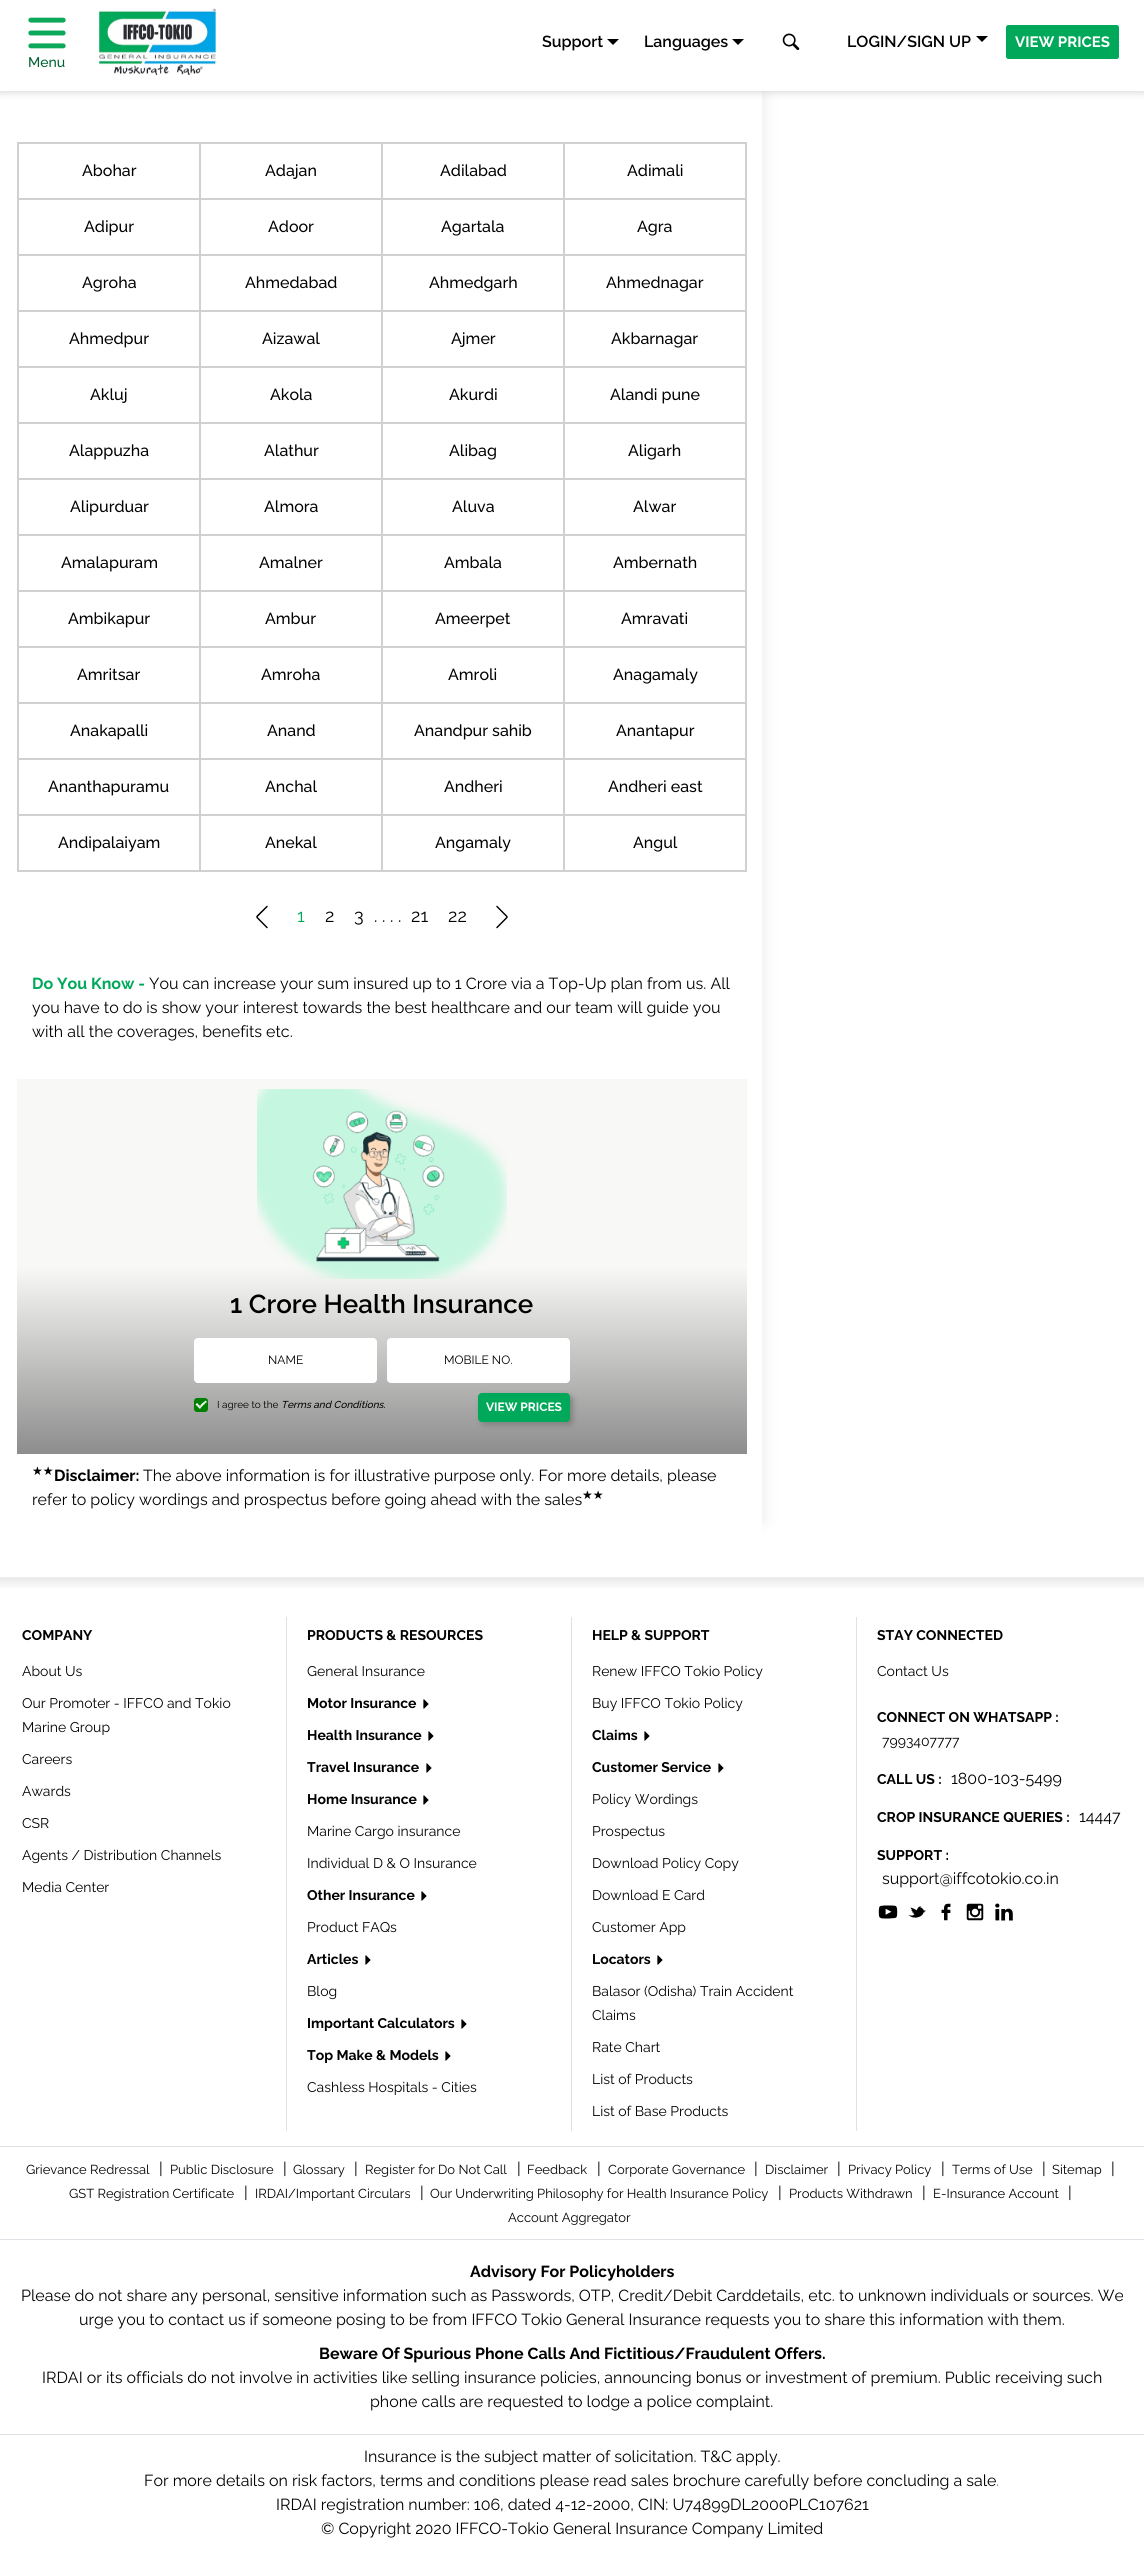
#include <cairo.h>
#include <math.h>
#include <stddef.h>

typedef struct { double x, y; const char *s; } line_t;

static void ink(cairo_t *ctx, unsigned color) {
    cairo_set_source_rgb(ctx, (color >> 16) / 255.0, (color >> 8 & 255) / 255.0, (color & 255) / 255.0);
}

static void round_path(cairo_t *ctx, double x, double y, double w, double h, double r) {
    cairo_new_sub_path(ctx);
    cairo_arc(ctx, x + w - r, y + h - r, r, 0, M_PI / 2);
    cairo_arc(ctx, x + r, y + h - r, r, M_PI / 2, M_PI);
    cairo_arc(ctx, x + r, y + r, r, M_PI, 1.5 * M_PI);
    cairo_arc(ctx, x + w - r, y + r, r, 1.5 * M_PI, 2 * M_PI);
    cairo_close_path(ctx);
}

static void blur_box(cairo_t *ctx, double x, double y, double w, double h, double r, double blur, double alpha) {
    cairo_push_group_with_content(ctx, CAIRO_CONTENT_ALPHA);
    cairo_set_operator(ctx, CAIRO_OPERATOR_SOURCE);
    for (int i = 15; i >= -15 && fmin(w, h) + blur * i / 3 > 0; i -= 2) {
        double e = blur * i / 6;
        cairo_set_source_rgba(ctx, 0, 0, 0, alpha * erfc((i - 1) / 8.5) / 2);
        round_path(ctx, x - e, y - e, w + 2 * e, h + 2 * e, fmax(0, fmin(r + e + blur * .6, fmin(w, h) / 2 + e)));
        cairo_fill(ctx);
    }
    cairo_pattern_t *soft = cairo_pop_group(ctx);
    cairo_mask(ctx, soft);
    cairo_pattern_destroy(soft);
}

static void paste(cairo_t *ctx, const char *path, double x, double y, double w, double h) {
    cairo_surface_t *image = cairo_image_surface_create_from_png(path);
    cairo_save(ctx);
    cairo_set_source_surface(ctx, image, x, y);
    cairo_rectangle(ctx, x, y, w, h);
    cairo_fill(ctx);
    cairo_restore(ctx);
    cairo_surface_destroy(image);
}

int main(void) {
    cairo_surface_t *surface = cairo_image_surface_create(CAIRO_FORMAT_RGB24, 1144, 2561);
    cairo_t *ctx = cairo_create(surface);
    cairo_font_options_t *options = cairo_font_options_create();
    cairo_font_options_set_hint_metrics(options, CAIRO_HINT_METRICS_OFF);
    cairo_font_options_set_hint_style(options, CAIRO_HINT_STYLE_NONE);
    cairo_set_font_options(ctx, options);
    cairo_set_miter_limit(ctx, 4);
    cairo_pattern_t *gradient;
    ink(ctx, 0xFFFFFF);
    cairo_paint(ctx);
    cairo_save(ctx);
    cairo_rectangle(ctx, 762, 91, 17, 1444);
    cairo_clip(ctx);
    ink(ctx, 0xECECEC);
    blur_box(ctx, 40, -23, 724, 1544, 0, 7.5, 1);
    cairo_restore(ctx);
    ink(ctx, 0xFFFFFF);
    cairo_rectangle(ctx, 762, 0, 10, 91);
    cairo_fill(ctx);
    cairo_save(ctx);
    cairo_rectangle(ctx, 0, 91, 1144, 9);
    cairo_clip(ctx);
    ink(ctx, 0xCCCCCC);
    blur_box(ctx, 0, 0, 1144, 91, 0, 4.5, 1);
    cairo_restore(ctx);
    paste(ctx, "media/1.png", 99, 8, 117, 67);
    cairo_select_font_face(ctx, "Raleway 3 Thin", CAIRO_FONT_SLANT_NORMAL, CAIRO_FONT_WEIGHT_NORMAL);
    cairo_set_font_size(ctx, 16);
    ink(ctx, 0x000000);
    cairo_move_to(ctx, 542, 47);
    cairo_show_text(ctx, "Support");
    cairo_new_path(ctx);
    cairo_move_to(ctx, 607, 39);
    cairo_line_to(ctx, 619, 39);
    cairo_line_to(ctx, 613, 45);
    cairo_close_path(ctx);
    cairo_fill(ctx);
    cairo_move_to(ctx, 644, 47);
    cairo_show_text(ctx, "Languages");
    cairo_new_path(ctx);
    cairo_move_to(ctx, 732, 39);
    cairo_line_to(ctx, 744, 39);
    cairo_line_to(ctx, 738, 45);
    cairo_close_path(ctx);
    cairo_fill(ctx);
    paste(ctx, "media/2.png", 782, 33, 18, 17);
    cairo_move_to(ctx, 847, 47);
    cairo_show_text(ctx, "LOGIN/SIGN UP");
    cairo_new_path(ctx);
    cairo_move_to(ctx, 976, 36);
    cairo_line_to(ctx, 988, 36);
    cairo_line_to(ctx, 982, 42);
    cairo_close_path(ctx);
    cairo_fill(ctx);
    ink(ctx, 0x00A959);
    round_path(ctx, 1006.5, 25.5, 112, 33, 2);
    cairo_fill_preserve(ctx);
    cairo_set_line_width(ctx, 1);
    cairo_stroke(ctx);
    cairo_select_font_face(ctx, "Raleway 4 Thin", CAIRO_FONT_SLANT_NORMAL, CAIRO_FONT_WEIGHT_NORMAL);
    cairo_set_font_size(ctx, 15);
    ink(ctx, 0xFFFFFF);
    cairo_move_to(ctx, 1015, 47);
    cairo_show_text(ctx, "VIEW PRICES");
    paste(ctx, "media/3.png", 28, 17, 38, 32);
    cairo_select_font_face(ctx, "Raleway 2 Thin", CAIRO_FONT_SLANT_NORMAL, CAIRO_FONT_WEIGHT_NORMAL);
    cairo_set_font_size(ctx, 14);
    ink(ctx, 0x006132);
    cairo_move_to(ctx, 28, 67);
    cairo_show_text(ctx, "Menu");
    cairo_rectangle(ctx, 17.5, 142.5, 729, 729);
    ink(ctx, 0xD1D0D0);
    cairo_stroke(ctx);
    cairo_rectangle(ctx, 18.5, 143.5, 181, 55);
    cairo_stroke(ctx);
    cairo_set_font_size(ctx, 16);
    ink(ctx, 0x000000);
    cairo_move_to(ctx, 82, 176);
    cairo_show_text(ctx, "Abohar");
    cairo_rectangle(ctx, 200.5, 143.5, 181, 55);
    ink(ctx, 0xD1D0D0);
    cairo_stroke(ctx);
    ink(ctx, 0x000000);
    cairo_move_to(ctx, 265, 176);
    cairo_show_text(ctx, "Adajan");
    cairo_rectangle(ctx, 382.5, 143.5, 181, 55);
    ink(ctx, 0xD1D0D0);
    cairo_stroke(ctx);
    ink(ctx, 0x000000);
    cairo_move_to(ctx, 440, 176);
    cairo_show_text(ctx, "Adilabad");
    cairo_rectangle(ctx, 564.5, 143.5, 181, 55);
    ink(ctx, 0xD1D0D0);
    cairo_stroke(ctx);
    ink(ctx, 0x000000);
    cairo_move_to(ctx, 627, 176);
    cairo_show_text(ctx, "Adimali");
    cairo_rectangle(ctx, 18.5, 199.5, 181, 55);
    ink(ctx, 0xD1D0D0);
    cairo_stroke(ctx);
    ink(ctx, 0x000000);
    cairo_move_to(ctx, 84, 232);
    cairo_show_text(ctx, "Adipur");
    cairo_rectangle(ctx, 200.5, 199.5, 181, 55);
    ink(ctx, 0xD1D0D0);
    cairo_stroke(ctx);
    ink(ctx, 0x000000);
    cairo_move_to(ctx, 268, 232);
    cairo_show_text(ctx, "Adoor");
    cairo_rectangle(ctx, 382.5, 199.5, 181, 55);
    ink(ctx, 0xD1D0D0);
    cairo_stroke(ctx);
    ink(ctx, 0x000000);
    cairo_move_to(ctx, 441, 232);
    cairo_show_text(ctx, "Agartala");
    cairo_rectangle(ctx, 564.5, 199.5, 181, 55);
    ink(ctx, 0xD1D0D0);
    cairo_stroke(ctx);
    ink(ctx, 0x000000);
    cairo_move_to(ctx, 637, 232);
    cairo_show_text(ctx, "Agra");
    cairo_rectangle(ctx, 18.5, 255.5, 181, 55);
    ink(ctx, 0xD1D0D0);
    cairo_stroke(ctx);
    ink(ctx, 0x000000);
    cairo_move_to(ctx, 82, 288);
    cairo_show_text(ctx, "Agroha");
    cairo_rectangle(ctx, 200.5, 255.5, 181, 55);
    ink(ctx, 0xD1D0D0);
    cairo_stroke(ctx);
    ink(ctx, 0x000000);
    cairo_move_to(ctx, 245, 288);
    cairo_show_text(ctx, "Ahmedabad");
    cairo_rectangle(ctx, 382.5, 255.5, 181, 55);
    ink(ctx, 0xD1D0D0);
    cairo_stroke(ctx);
    ink(ctx, 0x000000);
    cairo_move_to(ctx, 429, 288);
    cairo_show_text(ctx, "Ahmedgarh");
    cairo_rectangle(ctx, 564.5, 255.5, 181, 55);
    ink(ctx, 0xD1D0D0);
    cairo_stroke(ctx);
    ink(ctx, 0x000000);
    cairo_move_to(ctx, 606, 288);
    cairo_show_text(ctx, "Ahmednagar");
    cairo_rectangle(ctx, 18.5, 311.5, 181, 55);
    ink(ctx, 0xD1D0D0);
    cairo_stroke(ctx);
    ink(ctx, 0x000000);
    cairo_move_to(ctx, 69, 344);
    cairo_show_text(ctx, "Ahmedpur");
    cairo_rectangle(ctx, 200.5, 311.5, 181, 55);
    ink(ctx, 0xD1D0D0);
    cairo_stroke(ctx);
    ink(ctx, 0x000000);
    cairo_move_to(ctx, 262, 344);
    cairo_show_text(ctx, "Aizawal");
    cairo_rectangle(ctx, 382.5, 311.5, 181, 55);
    ink(ctx, 0xD1D0D0);
    cairo_stroke(ctx);
    ink(ctx, 0x000000);
    cairo_move_to(ctx, 451, 344);
    cairo_show_text(ctx, "Ajmer");
    cairo_rectangle(ctx, 564.5, 311.5, 181, 55);
    ink(ctx, 0xD1D0D0);
    cairo_stroke(ctx);
    ink(ctx, 0x000000);
    cairo_move_to(ctx, 611, 344);
    cairo_show_text(ctx, "Akbarnagar");
    cairo_rectangle(ctx, 18.5, 367.5, 181, 55);
    ink(ctx, 0xD1D0D0);
    cairo_stroke(ctx);
    ink(ctx, 0x000000);
    cairo_move_to(ctx, 90, 400);
    cairo_show_text(ctx, "Akluj");
    cairo_rectangle(ctx, 200.5, 367.5, 181, 55);
    ink(ctx, 0xD1D0D0);
    cairo_stroke(ctx);
    ink(ctx, 0x000000);
    cairo_move_to(ctx, 270, 400);
    cairo_show_text(ctx, "Akola");
    cairo_rectangle(ctx, 382.5, 367.5, 181, 55);
    ink(ctx, 0xD1D0D0);
    cairo_stroke(ctx);
    ink(ctx, 0x000000);
    cairo_move_to(ctx, 449, 400);
    cairo_show_text(ctx, "Akurdi");
    cairo_rectangle(ctx, 564.5, 367.5, 181, 55);
    ink(ctx, 0xD1D0D0);
    cairo_stroke(ctx);
    ink(ctx, 0x000000);
    cairo_move_to(ctx, 610, 400);
    cairo_show_text(ctx, "Alandi pune");
    cairo_rectangle(ctx, 18.5, 423.5, 181, 55);
    ink(ctx, 0xD1D0D0);
    cairo_stroke(ctx);
    ink(ctx, 0x000000);
    cairo_move_to(ctx, 69, 456);
    cairo_show_text(ctx, "Alappuzha");
    cairo_rectangle(ctx, 200.5, 423.5, 181, 55);
    ink(ctx, 0xD1D0D0);
    cairo_stroke(ctx);
    ink(ctx, 0x000000);
    cairo_move_to(ctx, 264, 456);
    cairo_show_text(ctx, "Alathur");
    cairo_rectangle(ctx, 382.5, 423.5, 181, 55);
    ink(ctx, 0xD1D0D0);
    cairo_stroke(ctx);
    ink(ctx, 0x000000);
    cairo_move_to(ctx, 449, 456);
    cairo_show_text(ctx, "Alibag");
    cairo_rectangle(ctx, 564.5, 423.5, 181, 55);
    ink(ctx, 0xD1D0D0);
    cairo_stroke(ctx);
    ink(ctx, 0x000000);
    cairo_move_to(ctx, 628, 456);
    cairo_show_text(ctx, "Aligarh");
    cairo_rectangle(ctx, 18.5, 479.5, 181, 55);
    ink(ctx, 0xD1D0D0);
    cairo_stroke(ctx);
    ink(ctx, 0x000000);
    cairo_move_to(ctx, 70, 512);
    cairo_show_text(ctx, "Alipurduar");
    cairo_rectangle(ctx, 200.5, 479.5, 181, 55);
    ink(ctx, 0xD1D0D0);
    cairo_stroke(ctx);
    ink(ctx, 0x000000);
    cairo_move_to(ctx, 264, 512);
    cairo_show_text(ctx, "Almora");
    cairo_rectangle(ctx, 382.5, 479.5, 181, 55);
    ink(ctx, 0xD1D0D0);
    cairo_stroke(ctx);
    ink(ctx, 0x000000);
    cairo_move_to(ctx, 452, 512);
    cairo_show_text(ctx, "Aluva");
    cairo_rectangle(ctx, 564.5, 479.5, 181, 55);
    ink(ctx, 0xD1D0D0);
    cairo_stroke(ctx);
    ink(ctx, 0x000000);
    cairo_move_to(ctx, 633, 512);
    cairo_show_text(ctx, "Alwar");
    cairo_rectangle(ctx, 18.5, 535.5, 181, 55);
    ink(ctx, 0xD1D0D0);
    cairo_stroke(ctx);
    ink(ctx, 0x000000);
    cairo_move_to(ctx, 61, 568);
    cairo_show_text(ctx, "Amalapuram");
    cairo_rectangle(ctx, 200.5, 535.5, 181, 55);
    ink(ctx, 0xD1D0D0);
    cairo_stroke(ctx);
    ink(ctx, 0x000000);
    cairo_move_to(ctx, 259, 568);
    cairo_show_text(ctx, "Amalner");
    cairo_rectangle(ctx, 382.5, 535.5, 181, 55);
    ink(ctx, 0xD1D0D0);
    cairo_stroke(ctx);
    ink(ctx, 0x000000);
    cairo_move_to(ctx, 444, 568);
    cairo_show_text(ctx, "Ambala");
    cairo_rectangle(ctx, 564.5, 535.5, 181, 55);
    ink(ctx, 0xD1D0D0);
    cairo_stroke(ctx);
    ink(ctx, 0x000000);
    cairo_move_to(ctx, 613, 568);
    cairo_show_text(ctx, "Ambernath");
    cairo_rectangle(ctx, 18.5, 591.5, 181, 55);
    ink(ctx, 0xD1D0D0);
    cairo_stroke(ctx);
    ink(ctx, 0x000000);
    cairo_move_to(ctx, 68, 624);
    cairo_show_text(ctx, "Ambikapur");
    cairo_rectangle(ctx, 200.5, 591.5, 181, 55);
    ink(ctx, 0xD1D0D0);
    cairo_stroke(ctx);
    ink(ctx, 0x000000);
    cairo_move_to(ctx, 265, 624);
    cairo_show_text(ctx, "Ambur");
    cairo_rectangle(ctx, 382.5, 591.5, 181, 55);
    ink(ctx, 0xD1D0D0);
    cairo_stroke(ctx);
    ink(ctx, 0x000000);
    cairo_move_to(ctx, 435, 624);
    cairo_show_text(ctx, "Ameerpet");
    cairo_rectangle(ctx, 564.5, 591.5, 181, 55);
    ink(ctx, 0xD1D0D0);
    cairo_stroke(ctx);
    ink(ctx, 0x000000);
    cairo_move_to(ctx, 621, 624);
    cairo_show_text(ctx, "Amravati");
    cairo_rectangle(ctx, 18.5, 647.5, 181, 55);
    ink(ctx, 0xD1D0D0);
    cairo_stroke(ctx);
    ink(ctx, 0x000000);
    cairo_move_to(ctx, 77, 680);
    cairo_show_text(ctx, "Amritsar");
    cairo_rectangle(ctx, 200.5, 647.5, 181, 55);
    ink(ctx, 0xD1D0D0);
    cairo_stroke(ctx);
    ink(ctx, 0x000000);
    cairo_move_to(ctx, 261, 680);
    cairo_show_text(ctx, "Amroha");
    cairo_rectangle(ctx, 382.5, 647.5, 181, 55);
    ink(ctx, 0xD1D0D0);
    cairo_stroke(ctx);
    ink(ctx, 0x000000);
    cairo_move_to(ctx, 448, 680);
    cairo_show_text(ctx, "Amroli");
    cairo_rectangle(ctx, 564.5, 647.5, 181, 55);
    ink(ctx, 0xD1D0D0);
    cairo_stroke(ctx);
    ink(ctx, 0x000000);
    cairo_move_to(ctx, 613, 680);
    cairo_show_text(ctx, "Anagamaly");
    cairo_rectangle(ctx, 18.5, 703.5, 181, 55);
    ink(ctx, 0xD1D0D0);
    cairo_stroke(ctx);
    ink(ctx, 0x000000);
    cairo_move_to(ctx, 70, 736);
    cairo_show_text(ctx, "Anakapalli");
    cairo_rectangle(ctx, 200.5, 703.5, 181, 55);
    ink(ctx, 0xD1D0D0);
    cairo_stroke(ctx);
    ink(ctx, 0x000000);
    cairo_move_to(ctx, 267, 736);
    cairo_show_text(ctx, "Anand");
    cairo_rectangle(ctx, 382.5, 703.5, 181, 55);
    ink(ctx, 0xD1D0D0);
    cairo_stroke(ctx);
    ink(ctx, 0x000000);
    cairo_move_to(ctx, 414, 736);
    cairo_show_text(ctx, "Anandpur sahib");
    cairo_rectangle(ctx, 564.5, 703.5, 181, 55);
    ink(ctx, 0xD1D0D0);
    cairo_stroke(ctx);
    ink(ctx, 0x000000);
    cairo_move_to(ctx, 616, 736);
    cairo_show_text(ctx, "Anantapur");
    cairo_rectangle(ctx, 18.5, 759.5, 181, 55);
    ink(ctx, 0xD1D0D0);
    cairo_stroke(ctx);
    ink(ctx, 0x000000);
    cairo_move_to(ctx, 48, 792);
    cairo_show_text(ctx, "Ananthapuramu");
    cairo_rectangle(ctx, 200.5, 759.5, 181, 55);
    ink(ctx, 0xD1D0D0);
    cairo_stroke(ctx);
    ink(ctx, 0x000000);
    cairo_move_to(ctx, 265, 792);
    cairo_show_text(ctx, "Anchal");
    cairo_rectangle(ctx, 382.5, 759.5, 181, 55);
    ink(ctx, 0xD1D0D0);
    cairo_stroke(ctx);
    ink(ctx, 0x000000);
    cairo_move_to(ctx, 444, 792);
    cairo_show_text(ctx, "Andheri");
    cairo_rectangle(ctx, 564.5, 759.5, 181, 55);
    ink(ctx, 0xD1D0D0);
    cairo_stroke(ctx);
    ink(ctx, 0x000000);
    cairo_move_to(ctx, 608, 792);
    cairo_show_text(ctx, "Andheri east");
    cairo_rectangle(ctx, 18.5, 815.5, 181, 55);
    ink(ctx, 0xD1D0D0);
    cairo_stroke(ctx);
    ink(ctx, 0x000000);
    cairo_move_to(ctx, 58, 848);
    cairo_show_text(ctx, "Andipalaiyam");
    cairo_rectangle(ctx, 200.5, 815.5, 181, 55);
    ink(ctx, 0xD1D0D0);
    cairo_stroke(ctx);
    ink(ctx, 0x000000);
    cairo_move_to(ctx, 265, 848);
    cairo_show_text(ctx, "Anekal");
    cairo_rectangle(ctx, 382.5, 815.5, 181, 55);
    ink(ctx, 0xD1D0D0);
    cairo_stroke(ctx);
    ink(ctx, 0x000000);
    cairo_move_to(ctx, 435, 848);
    cairo_show_text(ctx, "Angamaly");
    cairo_rectangle(ctx, 564.5, 815.5, 181, 55);
    ink(ctx, 0xD1D0D0);
    cairo_stroke(ctx);
    ink(ctx, 0x000000);
    cairo_move_to(ctx, 633, 848);
    cairo_show_text(ctx, "Angul");
    paste(ctx, "media/4.png", 256, 905, 12, 24);
    cairo_select_font_face(ctx, "Raleway Thin", CAIRO_FONT_SLANT_NORMAL, CAIRO_FONT_WEIGHT_NORMAL);
    cairo_set_font_size(ctx, 18);
    ink(ctx, 0x00A959);
    cairo_move_to(ctx, 297, 922);
    cairo_show_text(ctx, "1");
    ink(ctx, 0x000000);
    {
        static const line_t items[] = {
            {325, 922, "2"},
            {354, 922, "3"},
            {374, 922, ". . . ."},
            {411, 922, "21"},
            {448, 922, "22"},
        };
        for (size_t i = 0; i < sizeof items / sizeof *items; i++) {
            cairo_move_to(ctx, items[i].x, items[i].y);
            cairo_show_text(ctx, items[i].s);
        }
    }
    paste(ctx, "media/5.png", 496, 905, 12, 24);
    cairo_select_font_face(ctx, "Raleway 4 Thin", CAIRO_FONT_SLANT_NORMAL, CAIRO_FONT_WEIGHT_NORMAL);
    cairo_set_font_size(ctx, 16);
    ink(ctx, 0x00A959);
    cairo_move_to(ctx, 32, 989);
    cairo_show_text(ctx, "Do You Know -");
    cairo_select_font_face(ctx, "Raleway Thin", CAIRO_FONT_SLANT_NORMAL, CAIRO_FONT_WEIGHT_NORMAL);
    ink(ctx, 0x000000);
    {
        static const line_t items[] = {
            {149, 989, "You can increase your sum insured up to 1 Crore via a Top-Up plan from us. All"},
            {32, 1013, "you have to do is show your interest towards the best healthcare and our team will guide you"},
            {32, 1037, "with all the coverages, benefits etc."},
        };
        for (size_t i = 0; i < sizeof items / sizeof *items; i++) {
            cairo_move_to(ctx, items[i].x, items[i].y);
            cairo_show_text(ctx, items[i].s);
        }
    }
    gradient = cairo_pattern_create_linear(382, 1454, 382, 1079);
    cairo_pattern_add_color_stop_rgba(gradient, 0, 0.553, 0.553, 0.553, 1);
    cairo_pattern_add_color_stop_rgba(gradient, 0.5, 0.973, 0.973, 0.965, 1);
    cairo_set_source(ctx, gradient);
    cairo_pattern_destroy(gradient);
    cairo_rectangle(ctx, 17, 1079, 730, 375);
    cairo_fill(ctx);
    paste(ctx, "media/6.png", 257, 1089, 250, 190);
    cairo_select_font_face(ctx, "Raleway 3 Thin", CAIRO_FONT_SLANT_NORMAL, CAIRO_FONT_WEIGHT_NORMAL);
    cairo_set_font_size(ctx, 26);
    ink(ctx, 0x000000);
    cairo_move_to(ctx, 230, 1313);
    cairo_show_text(ctx, "1 Crore Health Insurance");
    ink(ctx, 0xFFFFFF);
    round_path(ctx, 194, 1338, 183, 45, 4);
    cairo_fill(ctx);
    cairo_select_font_face(ctx, "Raleway Thin", CAIRO_FONT_SLANT_NORMAL, CAIRO_FONT_WEIGHT_NORMAL);
    cairo_set_font_size(ctx, 12);
    ink(ctx, 0x000000);
    cairo_move_to(ctx, 268, 1364);
    cairo_show_text(ctx, "NAME");
    ink(ctx, 0xFFFFFF);
    round_path(ctx, 387, 1338, 183, 45, 4);
    cairo_fill(ctx);
    ink(ctx, 0x000000);
    cairo_move_to(ctx, 444, 1364);
    cairo_show_text(ctx, "MOBILE NO.");
    ink(ctx, 0x008000);
    round_path(ctx, 194, 1398, 14, 14, 3);
    cairo_fill(ctx);
    ink(ctx, 0xFFFFFF);
    cairo_new_path(ctx);
    cairo_move_to(ctx, 205.5, 1400.5);
    cairo_line_to(ctx, 207, 1402);
    cairo_line_to(ctx, 205.5, 1403);
    cairo_line_to(ctx, 204, 1402);
    cairo_close_path(ctx);
    cairo_fill(ctx);
    cairo_new_path(ctx);
    cairo_move_to(ctx, 204, 1402);
    cairo_line_to(ctx, 205.5, 1403);
    cairo_line_to(ctx, 204, 1404.5);
    cairo_line_to(ctx, 202.5, 1403);
    cairo_close_path(ctx);
    cairo_fill(ctx);
    cairo_new_path(ctx);
    cairo_move_to(ctx, 202.5, 1403);
    cairo_line_to(ctx, 204, 1404.5);
    cairo_line_to(ctx, 202.5, 1406);
    cairo_line_to(ctx, 201, 1404.5);
    cairo_close_path(ctx);
    cairo_fill(ctx);
    cairo_new_path(ctx);
    cairo_move_to(ctx, 201, 1404.5);
    cairo_line_to(ctx, 202.5, 1406);
    cairo_line_to(ctx, 201, 1407.5);
    cairo_line_to(ctx, 200, 1406);
    cairo_close_path(ctx);
    cairo_fill(ctx);
    cairo_new_path(ctx);
    cairo_move_to(ctx, 200, 1406);
    cairo_line_to(ctx, 201, 1407.5);
    cairo_line_to(ctx, 200, 1409);
    cairo_line_to(ctx, 198.5, 1407.5);
    cairo_close_path(ctx);
    cairo_fill(ctx);
    cairo_new_path(ctx);
    cairo_move_to(ctx, 198.5, 1404.5);
    cairo_line_to(ctx, 200, 1406);
    cairo_line_to(ctx, 198.5, 1407.5);
    cairo_line_to(ctx, 197, 1406);
    cairo_close_path(ctx);
    cairo_fill(ctx);
    cairo_new_path(ctx);
    cairo_move_to(ctx, 197, 1403);
    cairo_line_to(ctx, 198.5, 1404.5);
    cairo_line_to(ctx, 197, 1406);
    cairo_line_to(ctx, 195.5, 1404.5);
    cairo_close_path(ctx);
    cairo_fill(ctx);
    cairo_set_font_size(ctx, 10);
    ink(ctx, 0x000000);
    cairo_move_to(ctx, 217, 1408);
    cairo_show_text(ctx, "I agree to the");
    cairo_select_font_face(ctx, "Raleway Thin", CAIRO_FONT_SLANT_ITALIC, CAIRO_FONT_WEIGHT_NORMAL);
    cairo_move_to(ctx, 281, 1408);
    cairo_show_text(ctx, "Terms and Conditions.");
    ink(ctx, 0x808080);
    blur_box(ctx, 481, 1396, 92, 29, 4, 3, 1);
    ink(ctx, 0x00A959);
    round_path(ctx, 478, 1393, 92, 29, 4);
    cairo_fill(ctx);
    cairo_select_font_face(ctx, "Raleway 4 Thin", CAIRO_FONT_SLANT_NORMAL, CAIRO_FONT_WEIGHT_NORMAL);
    cairo_set_font_size(ctx, 12);
    ink(ctx, 0xFFFFFF);
    cairo_move_to(ctx, 486, 1411);
    cairo_show_text(ctx, "VIEW PRICES");
    cairo_select_font_face(ctx, "DejaVu Sans", CAIRO_FONT_SLANT_NORMAL, CAIRO_FONT_WEIGHT_NORMAL);
    ink(ctx, 0x000000);
    cairo_move_to(ctx, 32, 1475);
    cairo_show_text(ctx, "★★");
    cairo_select_font_face(ctx, "Raleway 4 Thin", CAIRO_FONT_SLANT_NORMAL, CAIRO_FONT_WEIGHT_NORMAL);
    cairo_set_font_size(ctx, 16);
    cairo_move_to(ctx, 54, 1481);
    cairo_show_text(ctx, "Disclaimer:");
    cairo_select_font_face(ctx, "Raleway Thin", CAIRO_FONT_SLANT_NORMAL, CAIRO_FONT_WEIGHT_NORMAL);
    cairo_move_to(ctx, 143, 1481);
    cairo_show_text(ctx, "The above information is for illustrative purpose only. For more details, please");
    cairo_move_to(ctx, 32, 1505);
    cairo_show_text(ctx, "refer to policy wordings and prospectus before going ahead with the sales");
    cairo_select_font_face(ctx, "DejaVu Sans", CAIRO_FONT_SLANT_NORMAL, CAIRO_FONT_WEIGHT_NORMAL);
    cairo_set_font_size(ctx, 12);
    cairo_move_to(ctx, 582, 1499);
    cairo_show_text(ctx, "★★");
    paste(ctx, "media/7.png", 0, 1577, 1144, 11);
    ink(ctx, 0xDEE2E6);
    cairo_rectangle(ctx, 286, 1617, 1, 514);
    cairo_fill(ctx);
    cairo_select_font_face(ctx, "Raleway 4 Thin", CAIRO_FONT_SLANT_NORMAL, CAIRO_FONT_WEIGHT_NORMAL);
    cairo_set_font_size(ctx, 14);
    ink(ctx, 0x000000);
    cairo_move_to(ctx, 22, 1640);
    cairo_show_text(ctx, "COMPANY");
    cairo_select_font_face(ctx, "Raleway Thin", CAIRO_FONT_SLANT_NORMAL, CAIRO_FONT_WEIGHT_NORMAL);
    {
        static const line_t items[] = {
            {22, 1676, "About Us"},
            {22, 1708, "Our Promoter - IFFCO and Tokio"},
            {22, 1732, "Marine Group"},
            {22, 1764, "Careers"},
            {22, 1796, "Awards"},
            {22, 1828, "CSR"},
            {22, 1860, "Agents / Distribution Channels"},
            {22, 1892, "Media Center"},
        };
        for (size_t i = 0; i < sizeof items / sizeof *items; i++) {
            cairo_move_to(ctx, items[i].x, items[i].y);
            cairo_show_text(ctx, items[i].s);
        }
    }
    ink(ctx, 0xDEE2E6);
    cairo_rectangle(ctx, 571, 1617, 1, 514);
    cairo_fill(ctx);
    cairo_select_font_face(ctx, "Raleway 4 Thin", CAIRO_FONT_SLANT_NORMAL, CAIRO_FONT_WEIGHT_NORMAL);
    ink(ctx, 0x000000);
    cairo_move_to(ctx, 307, 1640);
    cairo_show_text(ctx, "PRODUCTS & RESOURCES");
    cairo_select_font_face(ctx, "Raleway Thin", CAIRO_FONT_SLANT_NORMAL, CAIRO_FONT_WEIGHT_NORMAL);
    cairo_move_to(ctx, 307, 1676);
    cairo_show_text(ctx, "General Insurance");
    cairo_select_font_face(ctx, "Raleway 4 Thin", CAIRO_FONT_SLANT_NORMAL, CAIRO_FONT_WEIGHT_NORMAL);
    cairo_move_to(ctx, 307, 1708);
    cairo_show_text(ctx, "Motor Insurance");
    paste(ctx, "media/8.png", 423, 1699, 6, 10);
    cairo_move_to(ctx, 307, 1740);
    cairo_show_text(ctx, "Health Insurance");
    paste(ctx, "media/8.png", 428, 1731, 6, 10);
    cairo_move_to(ctx, 307, 1772);
    cairo_show_text(ctx, "Travel Insurance");
    paste(ctx, "media/8.png", 426, 1763, 6, 10);
    cairo_move_to(ctx, 307, 1804);
    cairo_show_text(ctx, "Home Insurance");
    paste(ctx, "media/8.png", 423, 1795, 6, 10);
    cairo_select_font_face(ctx, "Raleway Thin", CAIRO_FONT_SLANT_NORMAL, CAIRO_FONT_WEIGHT_NORMAL);
    cairo_move_to(ctx, 307, 1836);
    cairo_show_text(ctx, "Marine Cargo insurance");
    cairo_move_to(ctx, 307, 1868);
    cairo_show_text(ctx, "Individual D & O Insurance");
    cairo_select_font_face(ctx, "Raleway 4 Thin", CAIRO_FONT_SLANT_NORMAL, CAIRO_FONT_WEIGHT_NORMAL);
    cairo_move_to(ctx, 307, 1900);
    cairo_show_text(ctx, "Other Insurance");
    paste(ctx, "media/8.png", 421, 1891, 6, 10);
    cairo_select_font_face(ctx, "Raleway Thin", CAIRO_FONT_SLANT_NORMAL, CAIRO_FONT_WEIGHT_NORMAL);
    cairo_move_to(ctx, 307, 1932);
    cairo_show_text(ctx, "Product FAQs");
    cairo_select_font_face(ctx, "Raleway 4 Thin", CAIRO_FONT_SLANT_NORMAL, CAIRO_FONT_WEIGHT_NORMAL);
    cairo_move_to(ctx, 307, 1964);
    cairo_show_text(ctx, "Articles");
    paste(ctx, "media/8.png", 365, 1955, 6, 10);
    cairo_select_font_face(ctx, "Raleway Thin", CAIRO_FONT_SLANT_NORMAL, CAIRO_FONT_WEIGHT_NORMAL);
    cairo_move_to(ctx, 307, 1996);
    cairo_show_text(ctx, "Blog");
    cairo_select_font_face(ctx, "Raleway 4 Thin", CAIRO_FONT_SLANT_NORMAL, CAIRO_FONT_WEIGHT_NORMAL);
    cairo_move_to(ctx, 307, 2028);
    cairo_show_text(ctx, "Important Calculators");
    paste(ctx, "media/8.png", 461, 2019, 6, 10);
    cairo_move_to(ctx, 307, 2060);
    cairo_show_text(ctx, "Top Make & Models");
    paste(ctx, "media/8.png", 445, 2051, 6, 10);
    cairo_select_font_face(ctx, "Raleway Thin", CAIRO_FONT_SLANT_NORMAL, CAIRO_FONT_WEIGHT_NORMAL);
    cairo_move_to(ctx, 307, 2092);
    cairo_show_text(ctx, "Cashless Hospitals - Cities");
    ink(ctx, 0xDEE2E6);
    cairo_rectangle(ctx, 856, 1617, 1, 514);
    cairo_fill(ctx);
    cairo_select_font_face(ctx, "Raleway 4 Thin", CAIRO_FONT_SLANT_NORMAL, CAIRO_FONT_WEIGHT_NORMAL);
    ink(ctx, 0x000000);
    cairo_move_to(ctx, 592, 1640);
    cairo_show_text(ctx, "HELP & SUPPORT");
    cairo_select_font_face(ctx, "Raleway Thin", CAIRO_FONT_SLANT_NORMAL, CAIRO_FONT_WEIGHT_NORMAL);
    cairo_move_to(ctx, 592, 1676);
    cairo_show_text(ctx, "Renew IFFCO Tokio Policy");
    cairo_move_to(ctx, 592, 1708);
    cairo_show_text(ctx, "Buy IFFCO Tokio Policy");
    cairo_select_font_face(ctx, "Raleway 4 Thin", CAIRO_FONT_SLANT_NORMAL, CAIRO_FONT_WEIGHT_NORMAL);
    cairo_move_to(ctx, 592, 1740);
    cairo_show_text(ctx, "Claims");
    paste(ctx, "media/8.png", 644, 1731, 6, 10);
    cairo_move_to(ctx, 592, 1772);
    cairo_show_text(ctx, "Customer Service");
    paste(ctx, "media/8.png", 718, 1763, 6, 10);
    cairo_select_font_face(ctx, "Raleway Thin", CAIRO_FONT_SLANT_NORMAL, CAIRO_FONT_WEIGHT_NORMAL);
    {
        static const line_t items[] = {
            {592, 1804, "Policy Wordings"},
            {592, 1836, "Prospectus"},
            {592, 1868, "Download Policy Copy"},
            {592, 1900, "Download E Card"},
            {592, 1932, "Customer App"},
        };
        for (size_t i = 0; i < sizeof items / sizeof *items; i++) {
            cairo_move_to(ctx, items[i].x, items[i].y);
            cairo_show_text(ctx, items[i].s);
        }
    }
    cairo_select_font_face(ctx, "Raleway 4 Thin", CAIRO_FONT_SLANT_NORMAL, CAIRO_FONT_WEIGHT_NORMAL);
    cairo_move_to(ctx, 592, 1964);
    cairo_show_text(ctx, "Locators");
    paste(ctx, "media/8.png", 657, 1955, 6, 10);
    cairo_select_font_face(ctx, "Raleway Thin", CAIRO_FONT_SLANT_NORMAL, CAIRO_FONT_WEIGHT_NORMAL);
    {
        static const line_t items[] = {
            {592, 1996, "Balasor (Odisha) Train Accident"},
            {592, 2020, "Claims"},
            {592, 2052, "Rate Chart"},
            {592, 2084, "List of Products"},
            {592, 2116, "List of Base Products"},
        };
        for (size_t i = 0; i < sizeof items / sizeof *items; i++) {
            cairo_move_to(ctx, items[i].x, items[i].y);
            cairo_show_text(ctx, items[i].s);
        }
    }
    cairo_select_font_face(ctx, "Raleway 4 Thin", CAIRO_FONT_SLANT_NORMAL, CAIRO_FONT_WEIGHT_NORMAL);
    cairo_move_to(ctx, 877, 1640);
    cairo_show_text(ctx, "STAY CONNECTED");
    cairo_select_font_face(ctx, "Raleway Thin", CAIRO_FONT_SLANT_NORMAL, CAIRO_FONT_WEIGHT_NORMAL);
    cairo_move_to(ctx, 877, 1676);
    cairo_show_text(ctx, "Contact Us");
    cairo_select_font_face(ctx, "Raleway 4 Thin", CAIRO_FONT_SLANT_NORMAL, CAIRO_FONT_WEIGHT_NORMAL);
    cairo_move_to(ctx, 877, 1722);
    cairo_show_text(ctx, "CONNECT ON WHATSAPP :");
    cairo_select_font_face(ctx, "Raleway Thin", CAIRO_FONT_SLANT_NORMAL, CAIRO_FONT_WEIGHT_NORMAL);
    cairo_move_to(ctx, 882, 1746);
    cairo_show_text(ctx, "7993407777");
    cairo_select_font_face(ctx, "Raleway 4 Thin", CAIRO_FONT_SLANT_NORMAL, CAIRO_FONT_WEIGHT_NORMAL);
    cairo_move_to(ctx, 877, 1784);
    cairo_show_text(ctx, "CALL US :");
    cairo_select_font_face(ctx, "Raleway Thin", CAIRO_FONT_SLANT_NORMAL, CAIRO_FONT_WEIGHT_NORMAL);
    cairo_set_font_size(ctx, 16);
    cairo_move_to(ctx, 951, 1784);
    cairo_show_text(ctx, "1800-103-5499");
    cairo_select_font_face(ctx, "Raleway 4 Thin", CAIRO_FONT_SLANT_NORMAL, CAIRO_FONT_WEIGHT_NORMAL);
    cairo_set_font_size(ctx, 14);
    cairo_move_to(ctx, 877, 1822);
    cairo_show_text(ctx, "CROP INSURANCE QUERIES :");
    cairo_select_font_face(ctx, "Raleway Thin", CAIRO_FONT_SLANT_NORMAL, CAIRO_FONT_WEIGHT_NORMAL);
    cairo_set_font_size(ctx, 16);
    cairo_move_to(ctx, 1079, 1822);
    cairo_show_text(ctx, "14447");
    cairo_select_font_face(ctx, "Raleway 4 Thin", CAIRO_FONT_SLANT_NORMAL, CAIRO_FONT_WEIGHT_NORMAL);
    cairo_set_font_size(ctx, 14);
    cairo_move_to(ctx, 877, 1860);
    cairo_show_text(ctx, "SUPPORT :");
    cairo_select_font_face(ctx, "Raleway Thin", CAIRO_FONT_SLANT_NORMAL, CAIRO_FONT_WEIGHT_NORMAL);
    cairo_set_font_size(ctx, 16);
    cairo_move_to(ctx, 882, 1884);
    cairo_show_text(ctx, "support@iffcotokio.co.in");
    paste(ctx, "media/9.png", 878, 1905, 20, 14);
    paste(ctx, "media/10.png", 908, 1906, 18, 12);
    paste(ctx, "media/11.png", 941, 1903, 10, 18);
    paste(ctx, "media/12.png", 966, 1903, 18, 18);
    paste(ctx, "media/13.png", 995, 1903, 18, 18);
    ink(ctx, 0xDEE2E6);
    cairo_rectangle(ctx, 0, 2146, 1144, 1);
    cairo_fill(ctx);
    cairo_rectangle(ctx, 0, 2239, 1144, 1);
    cairo_fill(ctx);
    cairo_set_font_size(ctx, 13);
    ink(ctx, 0x000000);
    cairo_move_to(ctx, 26, 2174);
    cairo_show_text(ctx, "Grievance Redressal");
    cairo_set_font_size(ctx, 16);
    cairo_move_to(ctx, 159, 2174);
    cairo_show_text(ctx, "|");
    cairo_set_font_size(ctx, 13);
    cairo_move_to(ctx, 170, 2174);
    cairo_show_text(ctx, "Public Disclosure");
    cairo_set_font_size(ctx, 16);
    cairo_move_to(ctx, 283, 2174);
    cairo_show_text(ctx, "|");
    cairo_set_font_size(ctx, 13);
    cairo_move_to(ctx, 293, 2174);
    cairo_show_text(ctx, "Glossary");
    cairo_set_font_size(ctx, 16);
    cairo_move_to(ctx, 354, 2174);
    cairo_show_text(ctx, "|");
    cairo_set_font_size(ctx, 13);
    cairo_move_to(ctx, 365, 2174);
    cairo_show_text(ctx, "Register for Do Not Call");
    cairo_set_font_size(ctx, 16);
    cairo_move_to(ctx, 517, 2174);
    cairo_show_text(ctx, "|");
    cairo_set_font_size(ctx, 13);
    cairo_move_to(ctx, 527, 2174);
    cairo_show_text(ctx, "Feedback");
    cairo_set_font_size(ctx, 16);
    cairo_move_to(ctx, 597, 2174);
    cairo_show_text(ctx, "|");
    cairo_set_font_size(ctx, 13);
    cairo_move_to(ctx, 608, 2174);
    cairo_show_text(ctx, "Corporate Governance");
    cairo_set_font_size(ctx, 16);
    cairo_move_to(ctx, 754, 2174);
    cairo_show_text(ctx, "|");
    cairo_set_font_size(ctx, 13);
    cairo_move_to(ctx, 765, 2174);
    cairo_show_text(ctx, "Disclaimer");
    cairo_set_font_size(ctx, 16);
    cairo_move_to(ctx, 837, 2174);
    cairo_show_text(ctx, "|");
    cairo_set_font_size(ctx, 13);
    cairo_move_to(ctx, 848, 2174);
    cairo_show_text(ctx, "Privacy Policy");
    cairo_set_font_size(ctx, 16);
    cairo_move_to(ctx, 941, 2174);
    cairo_show_text(ctx, "|");
    cairo_set_font_size(ctx, 13);
    cairo_move_to(ctx, 952, 2174);
    cairo_show_text(ctx, "Terms of Use");
    cairo_set_font_size(ctx, 16);
    cairo_move_to(ctx, 1042, 2174);
    cairo_show_text(ctx, "|");
    cairo_set_font_size(ctx, 13);
    cairo_move_to(ctx, 1052, 2174);
    cairo_show_text(ctx, "Sitemap");
    cairo_set_font_size(ctx, 16);
    cairo_move_to(ctx, 1111, 2174);
    cairo_show_text(ctx, "|");
    cairo_set_font_size(ctx, 13);
    cairo_move_to(ctx, 69, 2198);
    cairo_show_text(ctx, "GST Registration Certificate");
    cairo_set_font_size(ctx, 16);
    cairo_move_to(ctx, 244, 2198);
    cairo_show_text(ctx, "|");
    cairo_set_font_size(ctx, 13);
    cairo_move_to(ctx, 255, 2198);
    cairo_show_text(ctx, "IRDAI/Important Circulars");
    cairo_set_font_size(ctx, 16);
    cairo_move_to(ctx, 420, 2198);
    cairo_show_text(ctx, "|");
    cairo_set_font_size(ctx, 13);
    cairo_move_to(ctx, 430, 2198);
    cairo_show_text(ctx, "Our Underwriting Philosophy for Health Insurance Policy");
    cairo_set_font_size(ctx, 16);
    cairo_move_to(ctx, 778, 2198);
    cairo_show_text(ctx, "|");
    cairo_set_font_size(ctx, 13);
    cairo_move_to(ctx, 789, 2198);
    cairo_show_text(ctx, "Products Withdrawn");
    cairo_set_font_size(ctx, 16);
    cairo_move_to(ctx, 922, 2198);
    cairo_show_text(ctx, "|");
    cairo_set_font_size(ctx, 13);
    cairo_move_to(ctx, 933, 2198);
    cairo_show_text(ctx, "E-Insurance Account");
    cairo_set_font_size(ctx, 16);
    cairo_move_to(ctx, 1068, 2198);
    cairo_show_text(ctx, "|");
    cairo_set_font_size(ctx, 13);
    cairo_move_to(ctx, 508, 2222);
    cairo_show_text(ctx, "Account Aggregator");
    ink(ctx, 0xDEE2E6);
    cairo_rectangle(ctx, 0, 2434, 1144, 1);
    cairo_fill(ctx);
    cairo_select_font_face(ctx, "Raleway 4 Thin", CAIRO_FONT_SLANT_NORMAL, CAIRO_FONT_WEIGHT_NORMAL);
    cairo_set_font_size(ctx, 16);
    ink(ctx, 0x000000);
    cairo_move_to(ctx, 470, 2277);
    cairo_show_text(ctx, "Advisory For Policyholders");
    cairo_select_font_face(ctx, "Raleway Thin", CAIRO_FONT_SLANT_NORMAL, CAIRO_FONT_WEIGHT_NORMAL);
    cairo_move_to(ctx, 21, 2301);
    cairo_show_text(ctx, "Please do not share any personal, sensitive information such as Passwords, OTP, Credit/Debit Carddetails, etc. to unknown individuals or sources. We");
    cairo_move_to(ctx, 79, 2325);
    cairo_show_text(ctx, "urge you to contact us if someone posing to be from IFFCO Tokio General Insurance requests you to share this information with them.");
    cairo_select_font_face(ctx, "Raleway 4 Thin", CAIRO_FONT_SLANT_NORMAL, CAIRO_FONT_WEIGHT_NORMAL);
    cairo_move_to(ctx, 319, 2359);
    cairo_show_text(ctx, "Beware Of Spurious Phone Calls And Fictitious/Fraudulent Offers.");
    cairo_select_font_face(ctx, "Raleway Thin", CAIRO_FONT_SLANT_NORMAL, CAIRO_FONT_WEIGHT_NORMAL);
    {
        static const line_t items[] = {
            {42, 2383, "IRDAI or its officials do not involve in activities like selling insurance policies, announcing bonus or investment of premium. Public receiving such"},
            {370, 2407, "phone calls are requested to lodge a police complaint."},
            {364, 2462, "Insurance is the subject matter of solicitation. T&C apply."},
            {144, 2486, "For more details on risk factors, terms and conditions please read sales brochure carefully before concluding a sale."},
            {276, 2510, "IRDAI registration number: 106, dated 4-12-2000, CIN: U74899DL2000PLC107621"},
            {321, 2534, "© Copyright 2020 IFFCO-Tokio General Insurance Company Limited"},
        };
        for (size_t i = 0; i < sizeof items / sizeof *items; i++) {
            cairo_move_to(ctx, items[i].x, items[i].y);
            cairo_show_text(ctx, items[i].s);
        }
    }
    cairo_surface_write_to_png(surface, "image.png");
    cairo_font_options_destroy(options);
    cairo_destroy(ctx);
    cairo_surface_destroy(surface);
    return 0;
}
